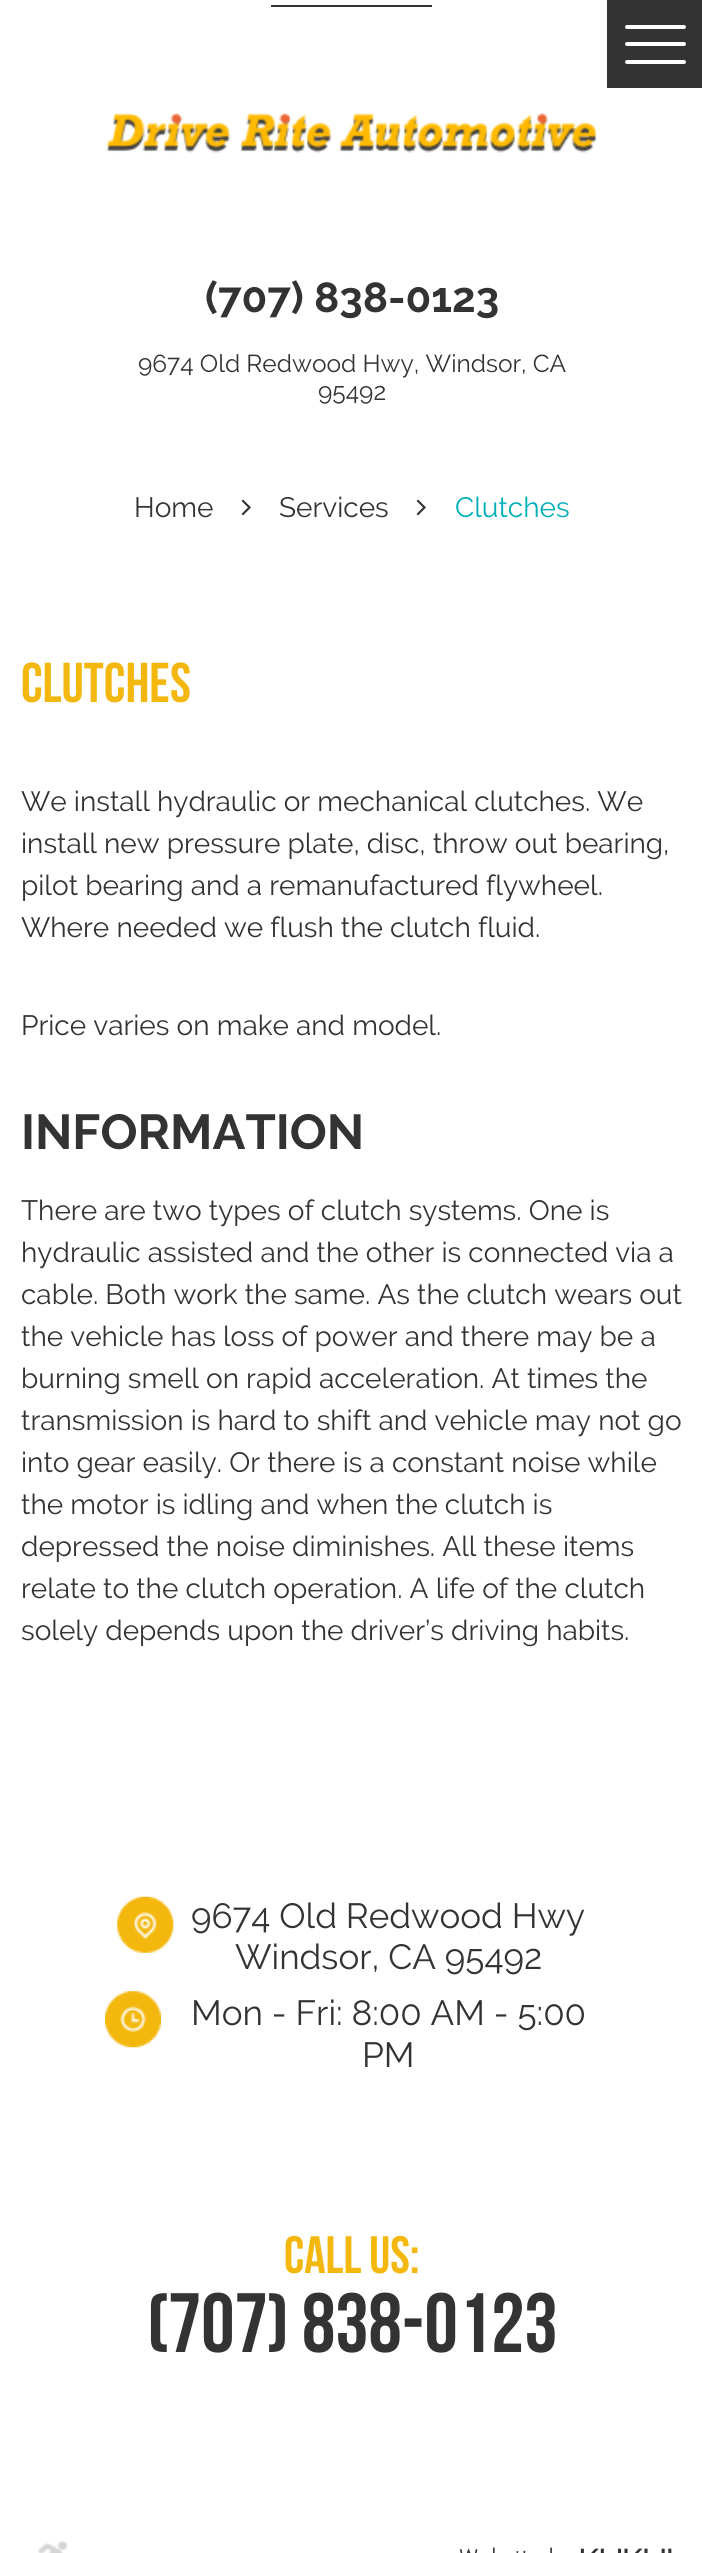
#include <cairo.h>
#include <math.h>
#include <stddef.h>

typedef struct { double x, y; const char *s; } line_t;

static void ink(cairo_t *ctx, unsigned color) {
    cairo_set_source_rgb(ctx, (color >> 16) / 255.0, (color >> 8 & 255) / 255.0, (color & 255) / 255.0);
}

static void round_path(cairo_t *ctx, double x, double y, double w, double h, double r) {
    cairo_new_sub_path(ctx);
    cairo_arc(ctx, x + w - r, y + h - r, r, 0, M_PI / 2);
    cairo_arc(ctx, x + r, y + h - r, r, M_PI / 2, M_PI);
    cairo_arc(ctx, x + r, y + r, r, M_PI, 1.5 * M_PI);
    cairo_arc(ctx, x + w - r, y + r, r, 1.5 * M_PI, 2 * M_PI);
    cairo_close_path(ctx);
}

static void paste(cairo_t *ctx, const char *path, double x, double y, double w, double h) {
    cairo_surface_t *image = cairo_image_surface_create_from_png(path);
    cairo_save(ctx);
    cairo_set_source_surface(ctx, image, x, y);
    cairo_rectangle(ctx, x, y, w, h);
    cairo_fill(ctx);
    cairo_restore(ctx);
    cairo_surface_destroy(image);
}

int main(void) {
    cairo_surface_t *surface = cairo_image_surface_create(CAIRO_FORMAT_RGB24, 702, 2553);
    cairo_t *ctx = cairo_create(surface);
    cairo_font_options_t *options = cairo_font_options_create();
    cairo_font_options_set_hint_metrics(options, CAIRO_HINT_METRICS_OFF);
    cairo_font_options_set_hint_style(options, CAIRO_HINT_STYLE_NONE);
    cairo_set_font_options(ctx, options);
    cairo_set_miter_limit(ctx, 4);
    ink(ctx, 0xFFFFFF);
    cairo_paint(ctx);
    ink(ctx, 0x333333);
    cairo_rectangle(ctx, 607, 0, 95, 88);
    cairo_fill(ctx);
    ink(ctx, 0xFFFFFF);
    round_path(ctx, 625, 42, 61, 4, 2);
    cairo_fill(ctx);
    round_path(ctx, 625, 25, 61, 4, 2);
    cairo_fill(ctx);
    round_path(ctx, 625, 60, 61, 4, 2);
    cairo_fill(ctx);
    ink(ctx, 0x333333);
    cairo_rectangle(ctx, 271, 5, 161, 2);
    cairo_fill(ctx);
    paste(ctx, "media/1.png", 106, 113, 491, 40);
    cairo_select_font_face(ctx, "Raleway", CAIRO_FONT_SLANT_NORMAL, CAIRO_FONT_WEIGHT_BOLD);
    cairo_set_font_size(ctx, 42);
    cairo_move_to(ctx, 205, 312);
    cairo_show_text(ctx, "(707) 838-0123");
    cairo_select_font_face(ctx, "Raleway", CAIRO_FONT_SLANT_NORMAL, CAIRO_FONT_WEIGHT_NORMAL);
    cairo_set_font_size(ctx, 24.5);
    cairo_move_to(ctx, 138, 372);
    cairo_show_text(ctx, "9674 Old Redwood Hwy, Windsor, CA");
    cairo_move_to(ctx, 318, 400);
    cairo_show_text(ctx, "95492");
    cairo_set_font_size(ctx, 28);
    cairo_move_to(ctx, 134, 517);
    cairo_show_text(ctx, "Home");
    paste(ctx, "media/2.png", 241, 499, 10, 17);
    cairo_move_to(ctx, 279, 517);
    cairo_show_text(ctx, "Services");
    paste(ctx, "media/2.png", 416, 499, 10, 17);
    ink(ctx, 0x00AFB9);
    cairo_move_to(ctx, 455, 517);
    cairo_show_text(ctx, "Clutches");
    cairo_select_font_face(ctx, "Bebas Neue", CAIRO_FONT_SLANT_NORMAL, CAIRO_FONT_WEIGHT_BOLD);
    cairo_set_font_size(ctx, 56);
    ink(ctx, 0xF3B70E);
    cairo_move_to(ctx, 21, 702);
    cairo_show_text(ctx, "Clutches");
    cairo_select_font_face(ctx, "Raleway", CAIRO_FONT_SLANT_NORMAL, CAIRO_FONT_WEIGHT_NORMAL);
    cairo_set_font_size(ctx, 28);
    ink(ctx, 0x333333);
    {
        static const line_t items[] = {
            {21, 811, "We install hydraulic or mechanical clutches. We"},
            {21, 853, "install new pressure plate, disc, throw out bearing,"},
            {21, 895, "pilot bearing and a remanufactured flywheel."},
            {21, 937, "Where needed we flush the clutch fluid."},
            {21, 1035, "Price varies on make and model."},
        };
        for (size_t i = 0; i < sizeof items / sizeof *items; i++) {
            cairo_move_to(ctx, items[i].x, items[i].y);
            cairo_show_text(ctx, items[i].s);
        }
    }
    cairo_select_font_face(ctx, "Raleway", CAIRO_FONT_SLANT_NORMAL, CAIRO_FONT_WEIGHT_BOLD);
    cairo_set_font_size(ctx, 49);
    cairo_move_to(ctx, 21, 1149);
    cairo_show_text(ctx, "INFORMATION");
    cairo_select_font_face(ctx, "Raleway", CAIRO_FONT_SLANT_NORMAL, CAIRO_FONT_WEIGHT_NORMAL);
    cairo_set_font_size(ctx, 28);
    {
        static const line_t items[] = {
            {21, 1220, "There are two types of clutch systems. One is"},
            {21, 1262, "hydraulic assisted and the other is connected via a"},
            {21, 1304, "cable. Both work the same. As the clutch wears out"},
            {21, 1346, "the vehicle has loss of power and there may be a"},
            {21, 1388, "burning smell on rapid acceleration. At times the"},
            {21, 1430, "transmission is hard to shift and vehicle may not go"},
            {21, 1472, "into gear easily. Or there is a constant noise while"},
            {21, 1514, "the motor is idling and when the clutch is"},
            {21, 1556, "depressed the noise diminishes. All these items"},
            {21, 1598, "relate to the clutch operation. A life of the clutch"},
            {21, 1640, "solely depends upon the driver’s driving habits."},
        };
        for (size_t i = 0; i < sizeof items / sizeof *items; i++) {
            cairo_move_to(ctx, items[i].x, items[i].y);
            cairo_show_text(ctx, items[i].s);
        }
    }
    paste(ctx, "media/3.png", 117, 1896, 57, 57);
    cairo_set_font_size(ctx, 35);
    cairo_move_to(ctx, 191, 1928);
    cairo_show_text(ctx, "9674 Old Redwood Hwy");
    cairo_move_to(ctx, 235, 1969);
    cairo_show_text(ctx, "Windsor, CA 95492");
    paste(ctx, "media/4.png", 105, 1991, 56, 57);
    cairo_move_to(ctx, 191, 2025);
    cairo_show_text(ctx, "Mon - Fri: 8:00 AM - 5:00");
    cairo_move_to(ctx, 362, 2067);
    cairo_show_text(ctx, "PM");
    cairo_select_font_face(ctx, "Bebas Neue", CAIRO_FONT_SLANT_NORMAL, CAIRO_FONT_WEIGHT_BOLD);
    cairo_set_font_size(ctx, 52.5);
    ink(ctx, 0xF3B70E);
    cairo_move_to(ctx, 284, 2273);
    cairo_show_text(ctx, "Call Us:");
    cairo_set_font_size(ctx, 84);
    ink(ctx, 0x333333);
    cairo_move_to(ctx, 147, 2352);
    cairo_show_text(ctx, "(707) 838-0123");
    paste(ctx, "media/5.png", 38, 2540, 30, 13);
    paste(ctx, "media/6.png", 459, 2547, 213, 6);
    cairo_surface_write_to_png(surface, "image.png");
    cairo_font_options_destroy(options);
    cairo_destroy(ctx);
    cairo_surface_destroy(surface);
    return 0;
}
